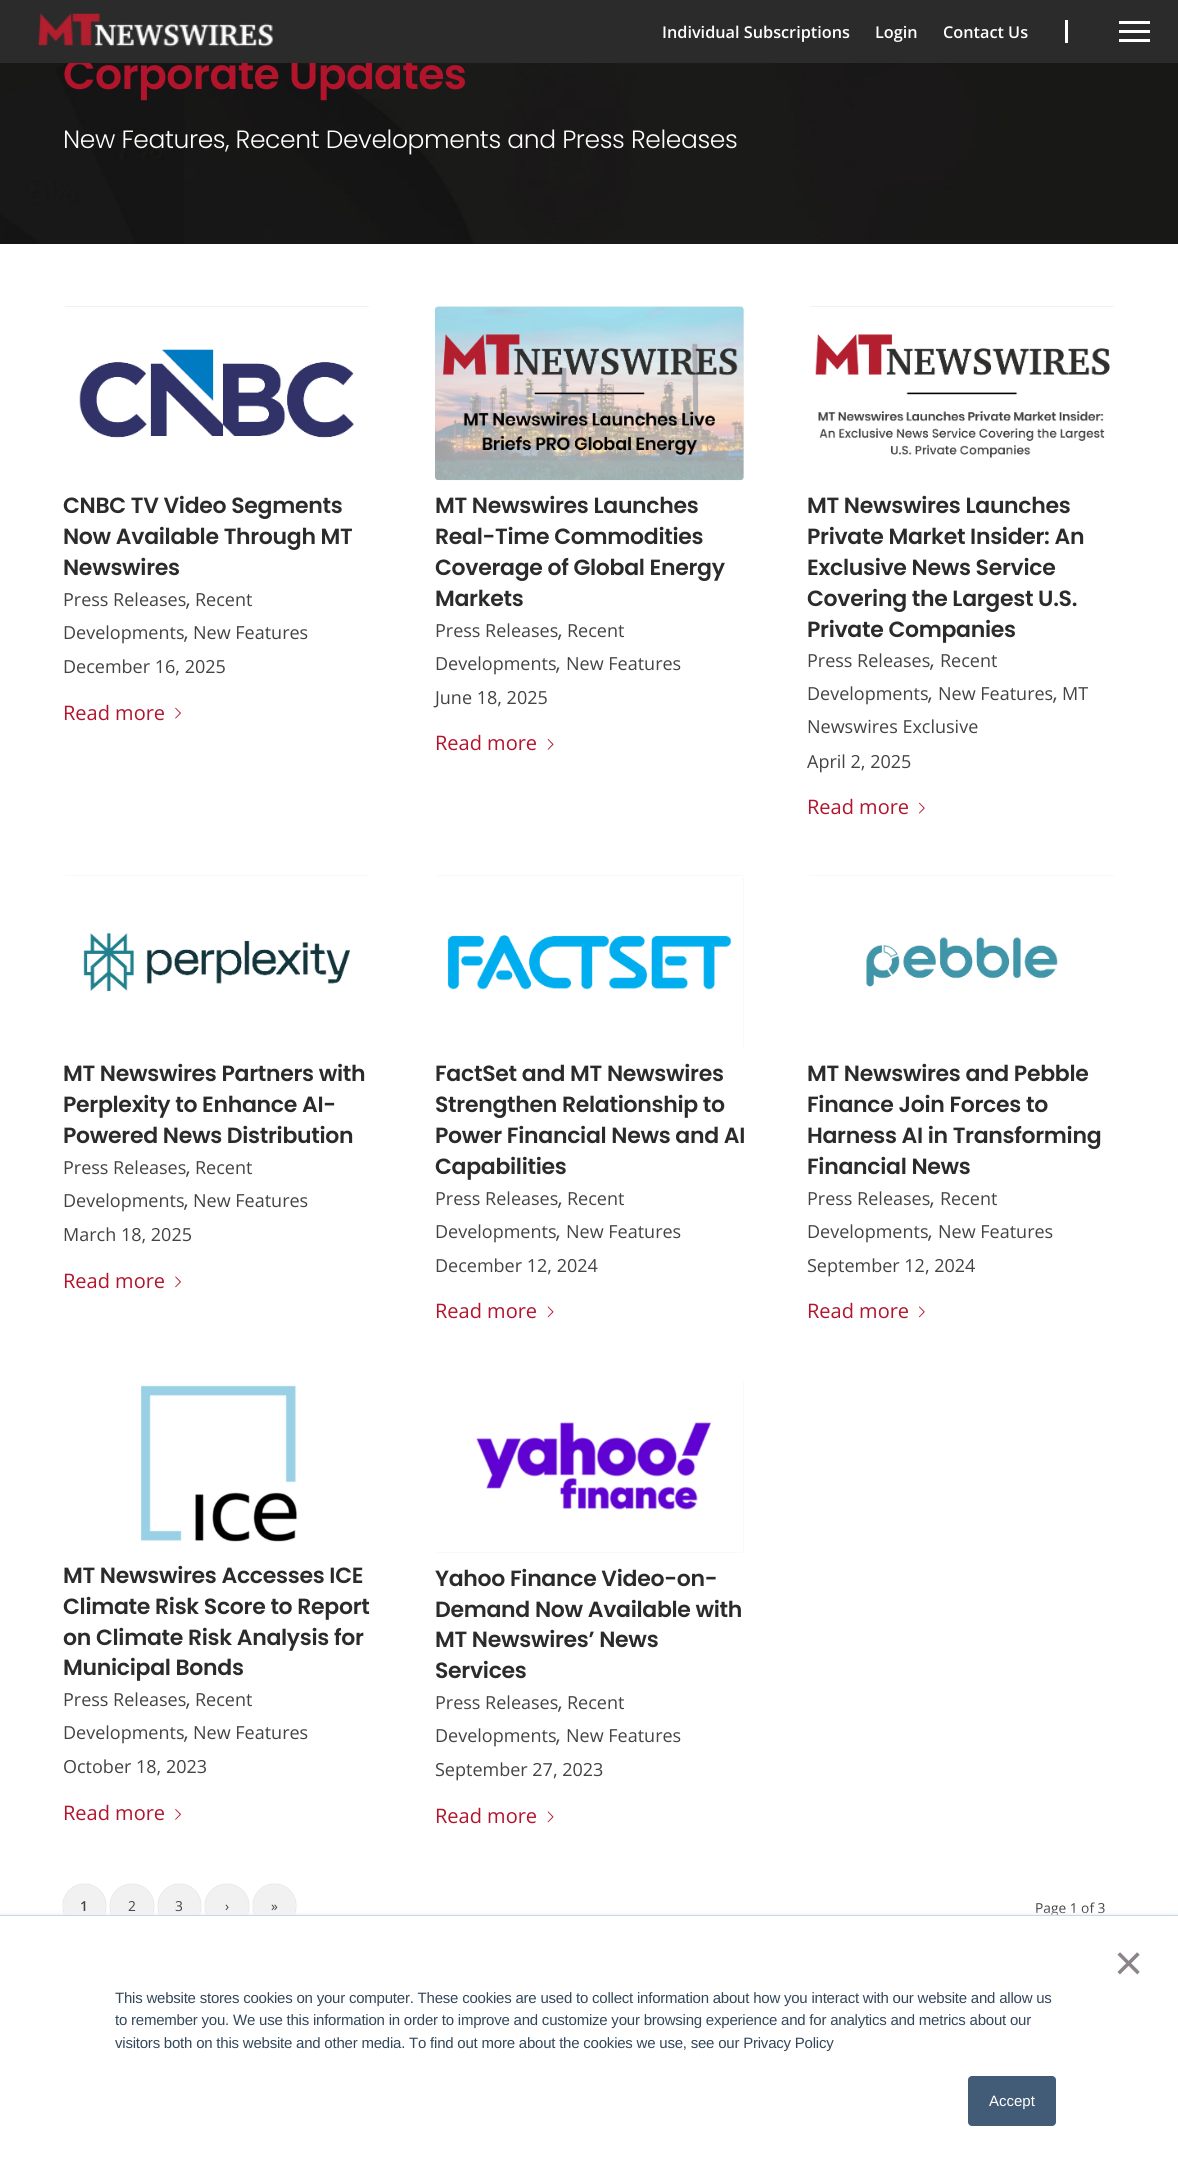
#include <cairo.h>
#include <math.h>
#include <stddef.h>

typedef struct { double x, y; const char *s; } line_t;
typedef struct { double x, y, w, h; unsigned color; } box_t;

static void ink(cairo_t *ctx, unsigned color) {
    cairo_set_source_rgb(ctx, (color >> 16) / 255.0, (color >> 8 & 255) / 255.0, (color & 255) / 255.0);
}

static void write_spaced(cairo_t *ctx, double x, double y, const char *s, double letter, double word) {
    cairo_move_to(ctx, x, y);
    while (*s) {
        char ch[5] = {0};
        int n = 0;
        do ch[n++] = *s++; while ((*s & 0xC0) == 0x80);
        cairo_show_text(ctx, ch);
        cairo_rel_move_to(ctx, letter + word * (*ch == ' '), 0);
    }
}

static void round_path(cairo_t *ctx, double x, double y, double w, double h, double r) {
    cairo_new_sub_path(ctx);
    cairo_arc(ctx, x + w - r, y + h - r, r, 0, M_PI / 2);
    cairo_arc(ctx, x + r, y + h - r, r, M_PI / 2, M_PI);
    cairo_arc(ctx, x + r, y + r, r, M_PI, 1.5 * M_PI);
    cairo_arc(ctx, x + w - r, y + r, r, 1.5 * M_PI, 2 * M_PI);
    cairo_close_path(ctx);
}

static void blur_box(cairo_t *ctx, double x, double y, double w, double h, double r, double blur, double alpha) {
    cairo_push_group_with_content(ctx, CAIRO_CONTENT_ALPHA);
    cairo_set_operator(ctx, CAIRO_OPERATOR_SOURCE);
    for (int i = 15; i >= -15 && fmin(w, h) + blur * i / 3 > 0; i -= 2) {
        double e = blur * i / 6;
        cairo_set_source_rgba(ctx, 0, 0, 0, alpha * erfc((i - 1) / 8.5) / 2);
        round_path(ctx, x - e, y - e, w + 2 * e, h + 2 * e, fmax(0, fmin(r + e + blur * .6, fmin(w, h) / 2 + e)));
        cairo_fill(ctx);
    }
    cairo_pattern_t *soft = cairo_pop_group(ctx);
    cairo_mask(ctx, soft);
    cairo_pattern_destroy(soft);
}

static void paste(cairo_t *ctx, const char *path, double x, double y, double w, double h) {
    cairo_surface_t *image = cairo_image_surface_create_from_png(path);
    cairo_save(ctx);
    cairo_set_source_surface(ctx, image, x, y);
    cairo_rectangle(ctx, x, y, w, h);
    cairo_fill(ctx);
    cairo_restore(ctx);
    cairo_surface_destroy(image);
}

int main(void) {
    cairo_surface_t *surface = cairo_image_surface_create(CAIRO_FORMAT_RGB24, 1178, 2158);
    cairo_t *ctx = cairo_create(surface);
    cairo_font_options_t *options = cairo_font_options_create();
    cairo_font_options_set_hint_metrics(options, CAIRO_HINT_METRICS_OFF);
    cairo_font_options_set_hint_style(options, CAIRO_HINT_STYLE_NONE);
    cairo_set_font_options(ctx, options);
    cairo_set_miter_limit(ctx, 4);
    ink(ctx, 0xFFFFFF);
    cairo_paint(ctx);
    paste(ctx, "media/2.png", 0, 63, 1178, 181);
    cairo_select_font_face(ctx, "Poppins SemiBold", CAIRO_FONT_SLANT_NORMAL, CAIRO_FONT_WEIGHT_NORMAL);
    cairo_set_font_size(ctx, 42.5);
    ink(ctx, 0xB2142C);
    write_spaced(ctx, 63, 89, "Corporate Updates", -0.6, 0);
    ink(ctx, 0x2B2B2B);
    cairo_rectangle(ctx, 0, 0, 1178, 63);
    cairo_fill(ctx);
    paste(ctx, "media/1.png", 38, 13, 236, 34);
    cairo_select_font_face(ctx, "Open Sans SemiBold", CAIRO_FONT_SLANT_NORMAL, CAIRO_FONT_WEIGHT_NORMAL);
    cairo_set_font_size(ctx, 16.25);
    ink(ctx, 0xFFFFFF);
    {
        static const line_t items[] = {
            {662, 38, "Individual Subscriptions"},
            {875, 38, "Login"},
            {943, 38, "Contact Us"},
        };
        for (size_t i = 0; i < sizeof items / sizeof *items; i++) {
            cairo_move_to(ctx, items[i].x, items[i].y);
            cairo_show_text(ctx, items[i].s);
        }
    }
    {
        static const box_t items[] = {
            {1065, 20, 3, 23, 0xFFFFFF},
            {1119, 21, 31, 3, 0xFFFFFF},
            {1119, 30, 31, 3, 0xFFFFFF},
            {1119, 39, 31, 3, 0xFFFFFF},
        };
        for (size_t i = 0; i < sizeof items / sizeof *items; i++) {
            ink(ctx, items[i].color);
            cairo_rectangle(ctx, items[i].x, items[i].y, items[i].w, items[i].h);
            cairo_fill(ctx);
        }
    }
    cairo_select_font_face(ctx, "Poppins Light", CAIRO_FONT_SLANT_NORMAL, CAIRO_FONT_WEIGHT_NORMAL);
    cairo_set_font_size(ctx, 25);
    write_spaced(ctx, 63, 148, "New Features, Recent Developments and Press Releases", -0.38, 0);
    ink(ctx, 0xF1F1F1);
    round_path(ctx, 63, 306, 308, 174, 4);
    cairo_fill(ctx);
    paste(ctx, "media/3.png", 63, 307, 308, 173);
    cairo_select_font_face(ctx, "Poppins SemiBold", CAIRO_FONT_SLANT_NORMAL, CAIRO_FONT_WEIGHT_NORMAL);
    cairo_set_font_size(ctx, 22);
    ink(ctx, 0x2B2B2B);
    {
        static const line_t items[] = {
            {63, 513, "CNBC TV Video Segments"},
            {63, 544, "Now Available Through MT"},
            {63, 575, "Newswires"},
        };
        for (size_t i = 0; i < sizeof items / sizeof *items; i++) {
            write_spaced(ctx, items[i].x, items[i].y, items[i].s, -0.3, 0);
        }
    }
    cairo_select_font_face(ctx, "Open Sans", CAIRO_FONT_SLANT_NORMAL, CAIRO_FONT_WEIGHT_NORMAL);
    cairo_set_font_size(ctx, 18);
    ink(ctx, 0x434343);
    cairo_move_to(ctx, 63, 606);
    cairo_show_text(ctx, "Press Releases");
    cairo_select_font_face(ctx, "Poppins", CAIRO_FONT_SLANT_NORMAL, CAIRO_FONT_WEIGHT_NORMAL);
    cairo_set_font_size(ctx, 20);
    cairo_move_to(ctx, 186, 606);
    cairo_show_text(ctx, ",");
    cairo_select_font_face(ctx, "Open Sans", CAIRO_FONT_SLANT_NORMAL, CAIRO_FONT_WEIGHT_NORMAL);
    cairo_set_font_size(ctx, 18);
    cairo_move_to(ctx, 195, 606);
    cairo_show_text(ctx, "Recent");
    cairo_move_to(ctx, 63, 639);
    cairo_show_text(ctx, "Developments");
    cairo_select_font_face(ctx, "Poppins", CAIRO_FONT_SLANT_NORMAL, CAIRO_FONT_WEIGHT_NORMAL);
    cairo_set_font_size(ctx, 20);
    cairo_move_to(ctx, 184, 639);
    cairo_show_text(ctx, ",");
    cairo_select_font_face(ctx, "Open Sans", CAIRO_FONT_SLANT_NORMAL, CAIRO_FONT_WEIGHT_NORMAL);
    cairo_set_font_size(ctx, 18);
    cairo_move_to(ctx, 193, 639);
    cairo_show_text(ctx, "New Features");
    cairo_move_to(ctx, 63, 673);
    cairo_show_text(ctx, "December 16, 2025");
    cairo_set_font_size(ctx, 20);
    ink(ctx, 0xB2142C);
    cairo_move_to(ctx, 63, 720);
    cairo_show_text(ctx, "Read more");
    paste(ctx, "media/4.png", 175, 707, 6, 12);
    ink(ctx, 0xF1F1F1);
    round_path(ctx, 435, 306, 309, 174, 4);
    cairo_fill(ctx);
    paste(ctx, "media/5.png", 435, 306, 309, 175);
    cairo_select_font_face(ctx, "Poppins SemiBold", CAIRO_FONT_SLANT_NORMAL, CAIRO_FONT_WEIGHT_NORMAL);
    cairo_set_font_size(ctx, 22);
    ink(ctx, 0x2B2B2B);
    {
        static const line_t items[] = {
            {435, 513, "MT Newswires Launches"},
            {435, 544, "Real-Time Commodities"},
            {435, 575, "Coverage of Global Energy"},
            {435, 606, "Markets"},
        };
        for (size_t i = 0; i < sizeof items / sizeof *items; i++) {
            write_spaced(ctx, items[i].x, items[i].y, items[i].s, -0.3, 0);
        }
    }
    cairo_select_font_face(ctx, "Open Sans", CAIRO_FONT_SLANT_NORMAL, CAIRO_FONT_WEIGHT_NORMAL);
    cairo_set_font_size(ctx, 18);
    ink(ctx, 0x434343);
    cairo_move_to(ctx, 435, 637);
    cairo_show_text(ctx, "Press Releases");
    cairo_select_font_face(ctx, "Poppins", CAIRO_FONT_SLANT_NORMAL, CAIRO_FONT_WEIGHT_NORMAL);
    cairo_set_font_size(ctx, 20);
    cairo_move_to(ctx, 558, 637);
    cairo_show_text(ctx, ",");
    cairo_select_font_face(ctx, "Open Sans", CAIRO_FONT_SLANT_NORMAL, CAIRO_FONT_WEIGHT_NORMAL);
    cairo_set_font_size(ctx, 18);
    cairo_move_to(ctx, 567, 637);
    cairo_show_text(ctx, "Recent");
    cairo_move_to(ctx, 435, 670);
    cairo_show_text(ctx, "Developments");
    cairo_select_font_face(ctx, "Poppins", CAIRO_FONT_SLANT_NORMAL, CAIRO_FONT_WEIGHT_NORMAL);
    cairo_set_font_size(ctx, 20);
    cairo_move_to(ctx, 556, 670);
    cairo_show_text(ctx, ",");
    cairo_select_font_face(ctx, "Open Sans", CAIRO_FONT_SLANT_NORMAL, CAIRO_FONT_WEIGHT_NORMAL);
    cairo_set_font_size(ctx, 18);
    cairo_move_to(ctx, 566, 670);
    cairo_show_text(ctx, "New Features");
    cairo_move_to(ctx, 435, 704);
    cairo_show_text(ctx, "June 18, 2025");
    cairo_set_font_size(ctx, 20);
    ink(ctx, 0xB2142C);
    cairo_move_to(ctx, 435, 750);
    cairo_show_text(ctx, "Read more");
    paste(ctx, "media/6.png", 547, 739, 7, 11);
    ink(ctx, 0xF1F1F1);
    round_path(ctx, 808, 306, 308, 174, 4);
    cairo_fill(ctx);
    paste(ctx, "media/7.png", 808, 307, 308, 173);
    cairo_select_font_face(ctx, "Poppins SemiBold", CAIRO_FONT_SLANT_NORMAL, CAIRO_FONT_WEIGHT_NORMAL);
    cairo_set_font_size(ctx, 22);
    ink(ctx, 0x2B2B2B);
    {
        static const line_t items[] = {
            {807, 513, "MT Newswires Launches"},
            {807, 544, "Private Market Insider: An"},
            {807, 575, "Exclusive News Service"},
            {807, 606, "Covering the Largest U.S."},
            {807, 637, "Private Companies"},
        };
        for (size_t i = 0; i < sizeof items / sizeof *items; i++) {
            write_spaced(ctx, items[i].x, items[i].y, items[i].s, -0.3, 0);
        }
    }
    cairo_select_font_face(ctx, "Open Sans", CAIRO_FONT_SLANT_NORMAL, CAIRO_FONT_WEIGHT_NORMAL);
    cairo_set_font_size(ctx, 18);
    ink(ctx, 0x434343);
    cairo_move_to(ctx, 807, 667);
    cairo_show_text(ctx, "Press Releases");
    cairo_select_font_face(ctx, "Poppins", CAIRO_FONT_SLANT_NORMAL, CAIRO_FONT_WEIGHT_NORMAL);
    cairo_set_font_size(ctx, 20);
    cairo_move_to(ctx, 930, 667);
    cairo_show_text(ctx, ",");
    cairo_select_font_face(ctx, "Open Sans", CAIRO_FONT_SLANT_NORMAL, CAIRO_FONT_WEIGHT_NORMAL);
    cairo_set_font_size(ctx, 18);
    cairo_move_to(ctx, 940, 667);
    cairo_show_text(ctx, "Recent");
    cairo_move_to(ctx, 807, 700);
    cairo_show_text(ctx, "Developments");
    cairo_select_font_face(ctx, "Poppins", CAIRO_FONT_SLANT_NORMAL, CAIRO_FONT_WEIGHT_NORMAL);
    cairo_set_font_size(ctx, 20);
    cairo_move_to(ctx, 928, 700);
    cairo_show_text(ctx, ",");
    cairo_select_font_face(ctx, "Open Sans", CAIRO_FONT_SLANT_NORMAL, CAIRO_FONT_WEIGHT_NORMAL);
    cairo_set_font_size(ctx, 18);
    cairo_move_to(ctx, 938, 700);
    cairo_show_text(ctx, "New Features");
    cairo_select_font_face(ctx, "Poppins", CAIRO_FONT_SLANT_NORMAL, CAIRO_FONT_WEIGHT_NORMAL);
    cairo_set_font_size(ctx, 20);
    cairo_move_to(ctx, 1053, 700);
    cairo_show_text(ctx, ",");
    cairo_select_font_face(ctx, "Open Sans", CAIRO_FONT_SLANT_NORMAL, CAIRO_FONT_WEIGHT_NORMAL);
    cairo_set_font_size(ctx, 18);
    {
        static const line_t items[] = {
            {1062, 700, "MT"},
            {807, 733, "Newswires Exclusive"},
            {807, 768, "April 2, 2025"},
        };
        for (size_t i = 0; i < sizeof items / sizeof *items; i++) {
            cairo_move_to(ctx, items[i].x, items[i].y);
            cairo_show_text(ctx, items[i].s);
        }
    }
    cairo_set_font_size(ctx, 20);
    ink(ctx, 0xB2142C);
    cairo_move_to(ctx, 807, 814);
    cairo_show_text(ctx, "Read more");
    paste(ctx, "media/8.png", 919, 802, 6, 12);
    ink(ctx, 0xF1F1F1);
    round_path(ctx, 63, 875, 308, 174, 4);
    cairo_fill(ctx);
    paste(ctx, "media/9.png", 63, 875, 308, 174);
    cairo_select_font_face(ctx, "Poppins SemiBold", CAIRO_FONT_SLANT_NORMAL, CAIRO_FONT_WEIGHT_NORMAL);
    cairo_set_font_size(ctx, 22);
    ink(ctx, 0x2B2B2B);
    {
        static const line_t items[] = {
            {63, 1081, "MT Newswires Partners with"},
            {63, 1112, "Perplexity to Enhance AI-"},
            {63, 1143, "Powered News Distribution"},
        };
        for (size_t i = 0; i < sizeof items / sizeof *items; i++) {
            write_spaced(ctx, items[i].x, items[i].y, items[i].s, -0.3, 0);
        }
    }
    cairo_select_font_face(ctx, "Open Sans", CAIRO_FONT_SLANT_NORMAL, CAIRO_FONT_WEIGHT_NORMAL);
    cairo_set_font_size(ctx, 18);
    ink(ctx, 0x434343);
    cairo_move_to(ctx, 63, 1174);
    cairo_show_text(ctx, "Press Releases");
    cairo_select_font_face(ctx, "Poppins", CAIRO_FONT_SLANT_NORMAL, CAIRO_FONT_WEIGHT_NORMAL);
    cairo_set_font_size(ctx, 20);
    cairo_move_to(ctx, 186, 1174);
    cairo_show_text(ctx, ",");
    cairo_select_font_face(ctx, "Open Sans", CAIRO_FONT_SLANT_NORMAL, CAIRO_FONT_WEIGHT_NORMAL);
    cairo_set_font_size(ctx, 18);
    cairo_move_to(ctx, 195, 1174);
    cairo_show_text(ctx, "Recent");
    cairo_move_to(ctx, 63, 1207);
    cairo_show_text(ctx, "Developments");
    cairo_select_font_face(ctx, "Poppins", CAIRO_FONT_SLANT_NORMAL, CAIRO_FONT_WEIGHT_NORMAL);
    cairo_set_font_size(ctx, 20);
    cairo_move_to(ctx, 184, 1207);
    cairo_show_text(ctx, ",");
    cairo_select_font_face(ctx, "Open Sans", CAIRO_FONT_SLANT_NORMAL, CAIRO_FONT_WEIGHT_NORMAL);
    cairo_set_font_size(ctx, 18);
    cairo_move_to(ctx, 193, 1207);
    cairo_show_text(ctx, "New Features");
    cairo_move_to(ctx, 63, 1241);
    cairo_show_text(ctx, "March 18, 2025");
    cairo_set_font_size(ctx, 20);
    ink(ctx, 0xB2142C);
    cairo_move_to(ctx, 63, 1288);
    cairo_show_text(ctx, "Read more");
    paste(ctx, "media/10.png", 175, 1276, 6, 12);
    ink(ctx, 0xF1F1F1);
    round_path(ctx, 435, 875, 309, 174, 4);
    cairo_fill(ctx);
    paste(ctx, "media/11.png", 435, 875, 309, 174);
    cairo_select_font_face(ctx, "Poppins SemiBold", CAIRO_FONT_SLANT_NORMAL, CAIRO_FONT_WEIGHT_NORMAL);
    cairo_set_font_size(ctx, 22);
    ink(ctx, 0x2B2B2B);
    {
        static const line_t items[] = {
            {435, 1081, "FactSet and MT Newswires"},
            {435, 1112, "Strengthen Relationship to"},
            {435, 1143, "Power Financial News and AI"},
            {435, 1174, "Capabilities"},
        };
        for (size_t i = 0; i < sizeof items / sizeof *items; i++) {
            write_spaced(ctx, items[i].x, items[i].y, items[i].s, -0.3, 0);
        }
    }
    cairo_select_font_face(ctx, "Open Sans", CAIRO_FONT_SLANT_NORMAL, CAIRO_FONT_WEIGHT_NORMAL);
    cairo_set_font_size(ctx, 18);
    ink(ctx, 0x434343);
    cairo_move_to(ctx, 435, 1205);
    cairo_show_text(ctx, "Press Releases");
    cairo_select_font_face(ctx, "Poppins", CAIRO_FONT_SLANT_NORMAL, CAIRO_FONT_WEIGHT_NORMAL);
    cairo_set_font_size(ctx, 20);
    cairo_move_to(ctx, 558, 1205);
    cairo_show_text(ctx, ",");
    cairo_select_font_face(ctx, "Open Sans", CAIRO_FONT_SLANT_NORMAL, CAIRO_FONT_WEIGHT_NORMAL);
    cairo_set_font_size(ctx, 18);
    cairo_move_to(ctx, 567, 1205);
    cairo_show_text(ctx, "Recent");
    cairo_move_to(ctx, 435, 1238);
    cairo_show_text(ctx, "Developments");
    cairo_select_font_face(ctx, "Poppins", CAIRO_FONT_SLANT_NORMAL, CAIRO_FONT_WEIGHT_NORMAL);
    cairo_set_font_size(ctx, 20);
    cairo_move_to(ctx, 556, 1238);
    cairo_show_text(ctx, ",");
    cairo_select_font_face(ctx, "Open Sans", CAIRO_FONT_SLANT_NORMAL, CAIRO_FONT_WEIGHT_NORMAL);
    cairo_set_font_size(ctx, 18);
    cairo_move_to(ctx, 566, 1238);
    cairo_show_text(ctx, "New Features");
    cairo_move_to(ctx, 435, 1272);
    cairo_show_text(ctx, "December 12, 2024");
    cairo_set_font_size(ctx, 20);
    ink(ctx, 0xB2142C);
    cairo_move_to(ctx, 435, 1318);
    cairo_show_text(ctx, "Read more");
    paste(ctx, "media/12.png", 547, 1306, 7, 12);
    ink(ctx, 0xF1F1F1);
    round_path(ctx, 808, 875, 308, 174, 4);
    cairo_fill(ctx);
    paste(ctx, "media/13.png", 808, 875, 308, 174);
    cairo_select_font_face(ctx, "Poppins SemiBold", CAIRO_FONT_SLANT_NORMAL, CAIRO_FONT_WEIGHT_NORMAL);
    cairo_set_font_size(ctx, 22);
    ink(ctx, 0x2B2B2B);
    {
        static const line_t items[] = {
            {807, 1081, "MT Newswires and Pebble"},
            {807, 1112, "Finance Join Forces to"},
            {807, 1143, "Harness AI in Transforming"},
            {807, 1174, "Financial News"},
        };
        for (size_t i = 0; i < sizeof items / sizeof *items; i++) {
            write_spaced(ctx, items[i].x, items[i].y, items[i].s, -0.3, 0);
        }
    }
    cairo_select_font_face(ctx, "Open Sans", CAIRO_FONT_SLANT_NORMAL, CAIRO_FONT_WEIGHT_NORMAL);
    cairo_set_font_size(ctx, 18);
    ink(ctx, 0x434343);
    cairo_move_to(ctx, 807, 1205);
    cairo_show_text(ctx, "Press Releases");
    cairo_select_font_face(ctx, "Poppins", CAIRO_FONT_SLANT_NORMAL, CAIRO_FONT_WEIGHT_NORMAL);
    cairo_set_font_size(ctx, 20);
    cairo_move_to(ctx, 930, 1205);
    cairo_show_text(ctx, ",");
    cairo_select_font_face(ctx, "Open Sans", CAIRO_FONT_SLANT_NORMAL, CAIRO_FONT_WEIGHT_NORMAL);
    cairo_set_font_size(ctx, 18);
    cairo_move_to(ctx, 940, 1205);
    cairo_show_text(ctx, "Recent");
    cairo_move_to(ctx, 807, 1238);
    cairo_show_text(ctx, "Developments");
    cairo_select_font_face(ctx, "Poppins", CAIRO_FONT_SLANT_NORMAL, CAIRO_FONT_WEIGHT_NORMAL);
    cairo_set_font_size(ctx, 20);
    cairo_move_to(ctx, 928, 1238);
    cairo_show_text(ctx, ",");
    cairo_select_font_face(ctx, "Open Sans", CAIRO_FONT_SLANT_NORMAL, CAIRO_FONT_WEIGHT_NORMAL);
    cairo_set_font_size(ctx, 18);
    cairo_move_to(ctx, 938, 1238);
    cairo_show_text(ctx, "New Features");
    cairo_move_to(ctx, 807, 1272);
    cairo_show_text(ctx, "September 12, 2024");
    cairo_set_font_size(ctx, 20);
    ink(ctx, 0xB2142C);
    cairo_move_to(ctx, 807, 1318);
    cairo_show_text(ctx, "Read more");
    paste(ctx, "media/14.png", 919, 1306, 6, 12);
    paste(ctx, "media/15.png", 63, 1379, 308, 171);
    cairo_select_font_face(ctx, "Poppins SemiBold", CAIRO_FONT_SLANT_NORMAL, CAIRO_FONT_WEIGHT_NORMAL);
    cairo_set_font_size(ctx, 22);
    ink(ctx, 0x2B2B2B);
    {
        static const line_t items[] = {
            {63, 1583, "MT Newswires Accesses ICE"},
            {63, 1614, "Climate Risk Score to Report"},
            {63, 1645, "on Climate Risk Analysis for"},
            {63, 1675, "Municipal Bonds"},
        };
        for (size_t i = 0; i < sizeof items / sizeof *items; i++) {
            write_spaced(ctx, items[i].x, items[i].y, items[i].s, -0.3, 0);
        }
    }
    cairo_select_font_face(ctx, "Open Sans", CAIRO_FONT_SLANT_NORMAL, CAIRO_FONT_WEIGHT_NORMAL);
    cairo_set_font_size(ctx, 18);
    ink(ctx, 0x434343);
    cairo_move_to(ctx, 63, 1706);
    cairo_show_text(ctx, "Press Releases");
    cairo_select_font_face(ctx, "Poppins", CAIRO_FONT_SLANT_NORMAL, CAIRO_FONT_WEIGHT_NORMAL);
    cairo_set_font_size(ctx, 20);
    cairo_move_to(ctx, 186, 1706);
    cairo_show_text(ctx, ",");
    cairo_select_font_face(ctx, "Open Sans", CAIRO_FONT_SLANT_NORMAL, CAIRO_FONT_WEIGHT_NORMAL);
    cairo_set_font_size(ctx, 18);
    cairo_move_to(ctx, 195, 1706);
    cairo_show_text(ctx, "Recent");
    cairo_move_to(ctx, 63, 1739);
    cairo_show_text(ctx, "Developments");
    cairo_select_font_face(ctx, "Poppins", CAIRO_FONT_SLANT_NORMAL, CAIRO_FONT_WEIGHT_NORMAL);
    cairo_set_font_size(ctx, 20);
    cairo_move_to(ctx, 184, 1739);
    cairo_show_text(ctx, ",");
    cairo_select_font_face(ctx, "Open Sans", CAIRO_FONT_SLANT_NORMAL, CAIRO_FONT_WEIGHT_NORMAL);
    cairo_set_font_size(ctx, 18);
    cairo_move_to(ctx, 193, 1739);
    cairo_show_text(ctx, "New Features");
    cairo_move_to(ctx, 63, 1773);
    cairo_show_text(ctx, "October 18, 2023");
    cairo_set_font_size(ctx, 20);
    ink(ctx, 0xB2142C);
    cairo_move_to(ctx, 63, 1820);
    cairo_show_text(ctx, "Read more");
    paste(ctx, "media/16.png", 175, 1809, 6, 11);
    ink(ctx, 0xF1F1F1);
    round_path(ctx, 435, 1379, 309, 174, 4);
    cairo_fill(ctx);
    paste(ctx, "media/17.png", 435, 1379, 309, 174);
    cairo_select_font_face(ctx, "Poppins SemiBold", CAIRO_FONT_SLANT_NORMAL, CAIRO_FONT_WEIGHT_NORMAL);
    cairo_set_font_size(ctx, 22);
    ink(ctx, 0x2B2B2B);
    {
        static const line_t items[] = {
            {435, 1586, "Yahoo Finance Video-on-"},
            {435, 1617, "Demand Now Available with"},
            {435, 1647, "MT Newswires’ News"},
            {435, 1678, "Services"},
        };
        for (size_t i = 0; i < sizeof items / sizeof *items; i++) {
            write_spaced(ctx, items[i].x, items[i].y, items[i].s, -0.3, 0);
        }
    }
    cairo_select_font_face(ctx, "Open Sans", CAIRO_FONT_SLANT_NORMAL, CAIRO_FONT_WEIGHT_NORMAL);
    cairo_set_font_size(ctx, 18);
    ink(ctx, 0x434343);
    cairo_move_to(ctx, 435, 1709);
    cairo_show_text(ctx, "Press Releases");
    cairo_select_font_face(ctx, "Poppins", CAIRO_FONT_SLANT_NORMAL, CAIRO_FONT_WEIGHT_NORMAL);
    cairo_set_font_size(ctx, 20);
    cairo_move_to(ctx, 558, 1709);
    cairo_show_text(ctx, ",");
    cairo_select_font_face(ctx, "Open Sans", CAIRO_FONT_SLANT_NORMAL, CAIRO_FONT_WEIGHT_NORMAL);
    cairo_set_font_size(ctx, 18);
    cairo_move_to(ctx, 567, 1709);
    cairo_show_text(ctx, "Recent");
    cairo_move_to(ctx, 435, 1742);
    cairo_show_text(ctx, "Developments");
    cairo_select_font_face(ctx, "Poppins", CAIRO_FONT_SLANT_NORMAL, CAIRO_FONT_WEIGHT_NORMAL);
    cairo_set_font_size(ctx, 20);
    cairo_move_to(ctx, 556, 1742);
    cairo_show_text(ctx, ",");
    cairo_select_font_face(ctx, "Open Sans", CAIRO_FONT_SLANT_NORMAL, CAIRO_FONT_WEIGHT_NORMAL);
    cairo_set_font_size(ctx, 18);
    cairo_move_to(ctx, 566, 1742);
    cairo_show_text(ctx, "New Features");
    cairo_move_to(ctx, 435, 1776);
    cairo_show_text(ctx, "September 27, 2023");
    cairo_set_font_size(ctx, 20);
    ink(ctx, 0xB2142C);
    cairo_move_to(ctx, 435, 1823);
    cairo_show_text(ctx, "Read more");
    paste(ctx, "media/12.png", 547, 1811, 7, 12);
    ink(ctx, 0x000000);
    blur_box(ctx, 63, 1884, 43, 44, 21.5, 0.5, 0.2);
    ink(ctx, 0xF1F1F1);
    round_path(ctx, 63, 1884, 43, 44, 21.5);
    cairo_fill(ctx);
    cairo_select_font_face(ctx, "Open Sans SemiBold", CAIRO_FONT_SLANT_NORMAL, CAIRO_FONT_WEIGHT_NORMAL);
    cairo_set_font_size(ctx, 13.75);
    ink(ctx, 0x434343);
    cairo_move_to(ctx, 80, 1911);
    cairo_show_text(ctx, "1");
    ink(ctx, 0x000000);
    blur_box(ctx, 110, 1884, 44, 44, 22, 0.5, 0.2);
    ink(ctx, 0xF1F1F1);
    cairo_arc(ctx, 132, 1906, 22, 0, 2 * M_PI);
    cairo_fill(ctx);
    cairo_select_font_face(ctx, "Open Sans", CAIRO_FONT_SLANT_NORMAL, CAIRO_FONT_WEIGHT_NORMAL);
    ink(ctx, 0x434343);
    cairo_move_to(ctx, 128, 1911);
    cairo_show_text(ctx, "2");
    ink(ctx, 0x000000);
    blur_box(ctx, 158, 1884, 43, 44, 21.5, 0.5, 0.2);
    ink(ctx, 0xF1F1F1);
    round_path(ctx, 158, 1884, 43, 44, 21.5);
    cairo_fill(ctx);
    ink(ctx, 0x434343);
    cairo_move_to(ctx, 175, 1911);
    cairo_show_text(ctx, "3");
    ink(ctx, 0x000000);
    blur_box(ctx, 205, 1884, 44, 44, 22, 0.5, 0.2);
    ink(ctx, 0xF1F1F1);
    cairo_arc(ctx, 227, 1906, 22, 0, 2 * M_PI);
    cairo_fill(ctx);
    ink(ctx, 0x434343);
    cairo_move_to(ctx, 225, 1911);
    cairo_show_text(ctx, "›");
    ink(ctx, 0x000000);
    blur_box(ctx, 253, 1884, 43, 44, 21.5, 0.5, 0.2);
    ink(ctx, 0xF1F1F1);
    round_path(ctx, 253, 1884, 43, 44, 21.5);
    cairo_fill(ctx);
    ink(ctx, 0x434343);
    cairo_move_to(ctx, 271, 1911);
    cairo_show_text(ctx, "»");
    cairo_move_to(ctx, 1035, 1913);
    cairo_show_text(ctx, "Page 1 of 3");
    ink(ctx, 0xEAF0F6);
    blur_box(ctx, 0, 1914, 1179, 244, 0, 2, 1);
    ink(ctx, 0xFFFFFF);
    cairo_rectangle(ctx, 0, 1916, 1178, 242);
    cairo_fill(ctx);
    ink(ctx, 0xCBD6E2);
    cairo_rectangle(ctx, 0, 1915, 1178, 1);
    cairo_fill(ctx);
    cairo_select_font_face(ctx, "Liberation Sans", CAIRO_FONT_SLANT_NORMAL, CAIRO_FONT_WEIGHT_NORMAL);
    cairo_set_font_size(ctx, 50);
    ink(ctx, 0x8B8589);
    cairo_move_to(ctx, 1114, 1980);
    cairo_show_text(ctx, "×");
    cairo_set_font_size(ctx, 15);
    ink(ctx, 0x33475B);
    {
        static const line_t items[] = {
            {115, 2003, "This website stores cookies on your computer. These cookies are used to collect information about how you interact with our website and allow us"},
            {115, 2025, "to remember you. We use this information in order to improve and customize your browsing experience and for analytics and metrics about our"},
            {115, 2048, "visitors both on this website and other media. To find out more about the cookies we use, see our Privacy Policy"},
        };
        for (size_t i = 0; i < sizeof items / sizeof *items; i++) {
            write_spaced(ctx, items[i].x, items[i].y, items[i].s, -0.22, 0);
        }
    }
    ink(ctx, 0x425B76);
    round_path(ctx, 968.5, 2076.5, 87, 49, 3.5);
    cairo_fill_preserve(ctx);
    cairo_set_line_width(ctx, 1);
    cairo_stroke(ctx);
    ink(ctx, 0xFFFFFF);
    cairo_move_to(ctx, 989, 2106);
    cairo_show_text(ctx, "Accept");
    cairo_surface_write_to_png(surface, "image.png");
    cairo_font_options_destroy(options);
    cairo_destroy(ctx);
    cairo_surface_destroy(surface);
    return 0;
}
